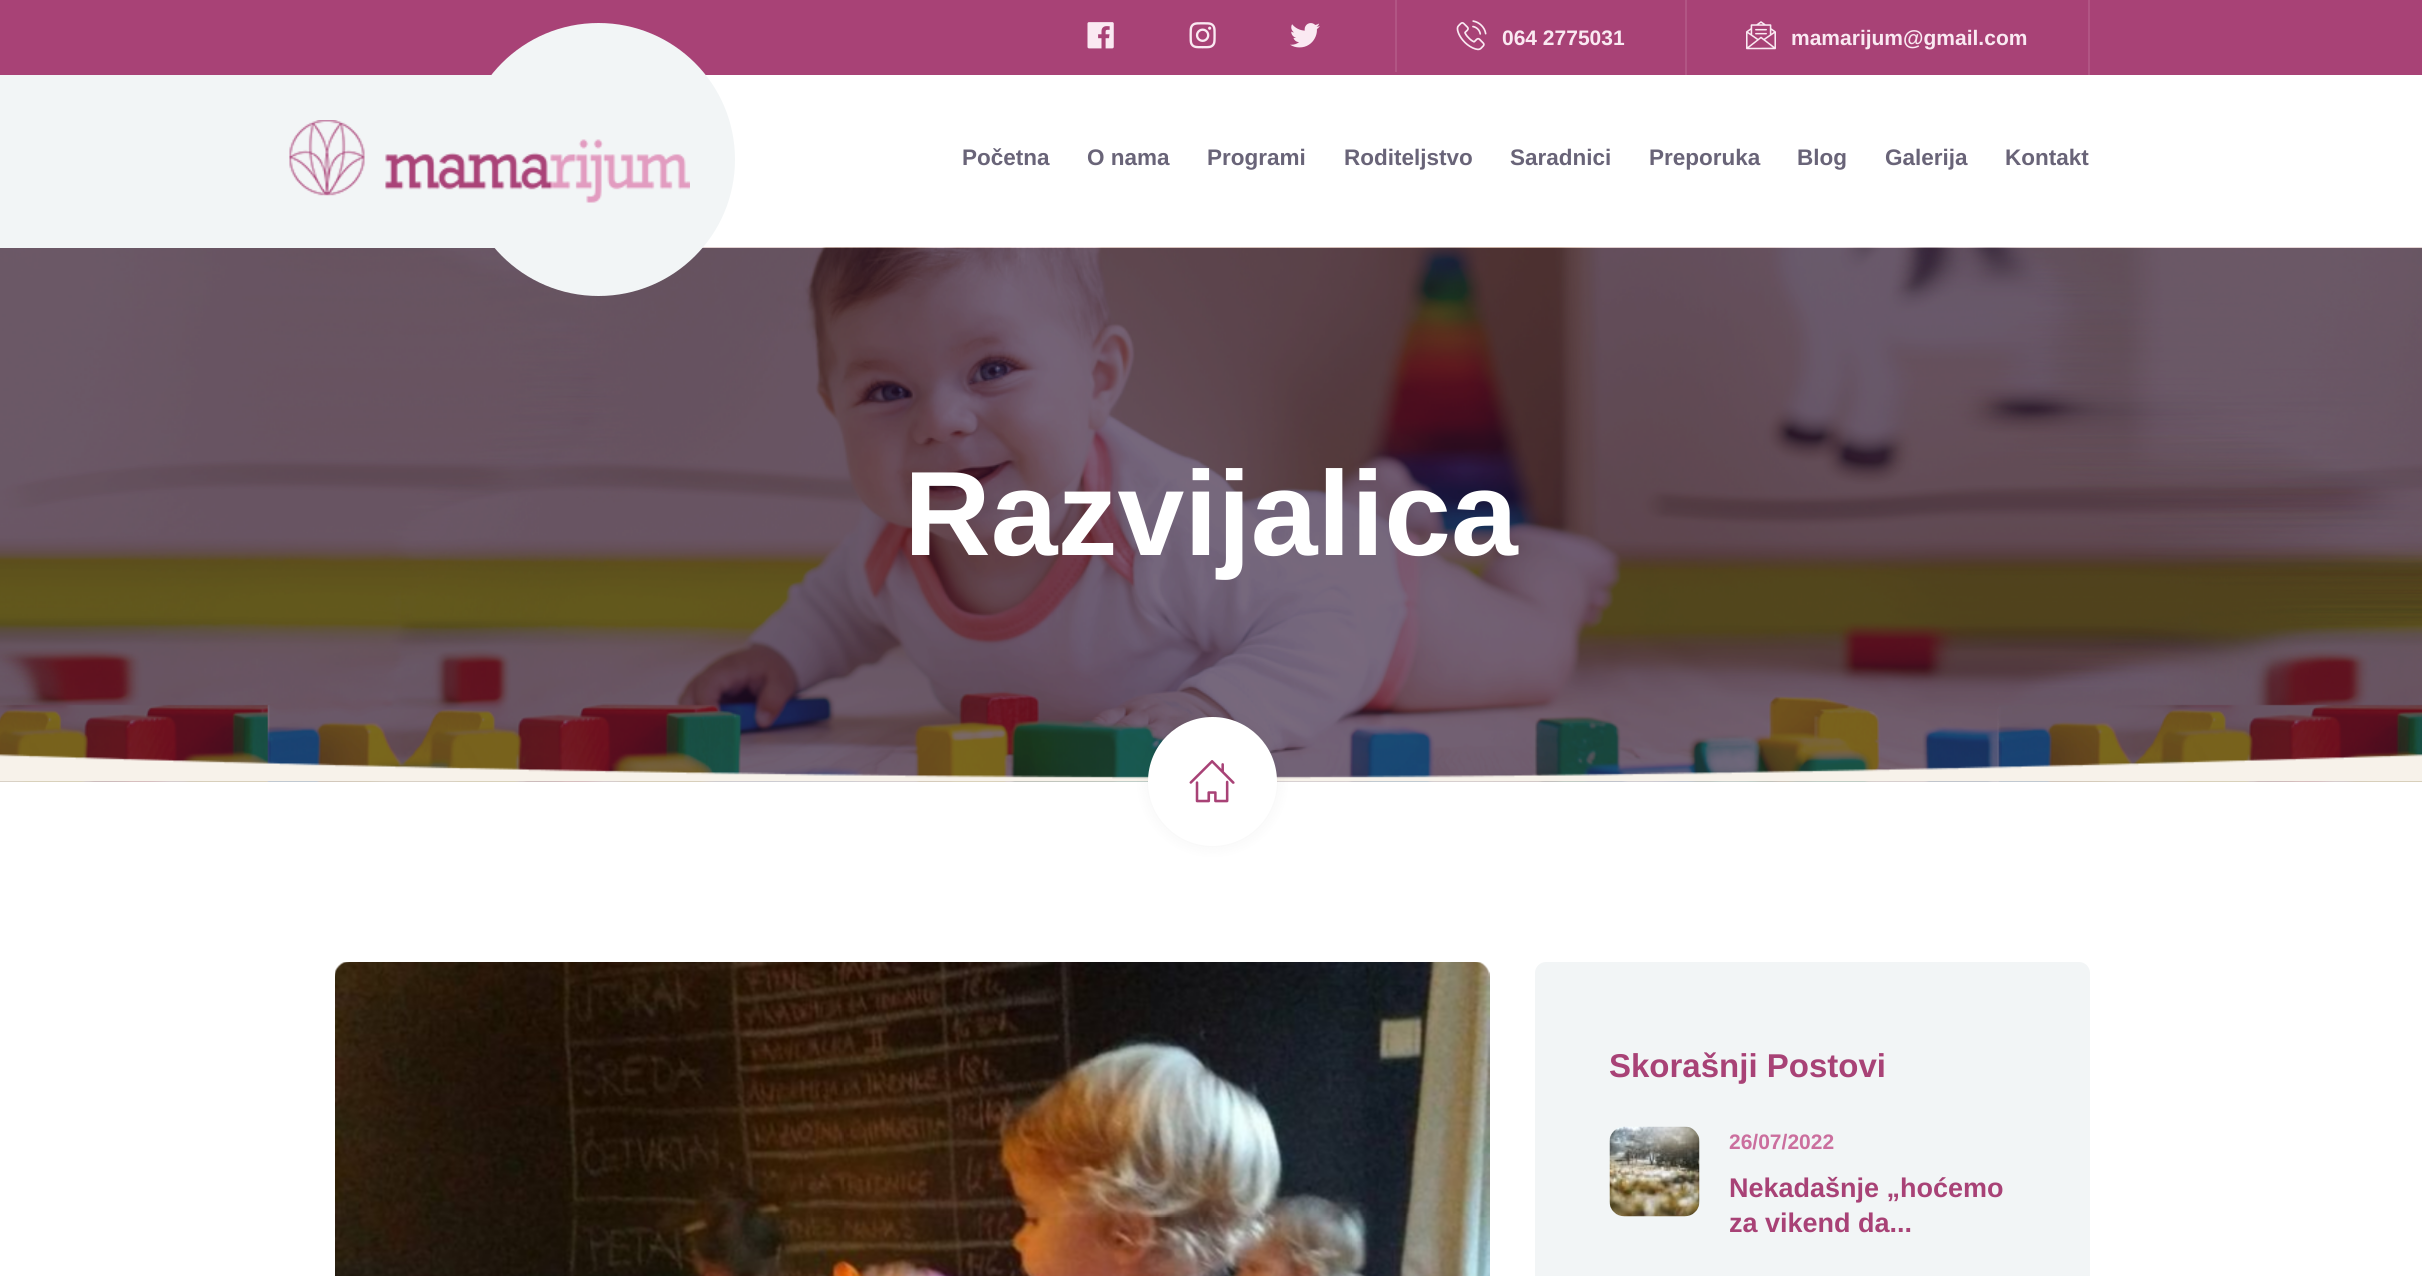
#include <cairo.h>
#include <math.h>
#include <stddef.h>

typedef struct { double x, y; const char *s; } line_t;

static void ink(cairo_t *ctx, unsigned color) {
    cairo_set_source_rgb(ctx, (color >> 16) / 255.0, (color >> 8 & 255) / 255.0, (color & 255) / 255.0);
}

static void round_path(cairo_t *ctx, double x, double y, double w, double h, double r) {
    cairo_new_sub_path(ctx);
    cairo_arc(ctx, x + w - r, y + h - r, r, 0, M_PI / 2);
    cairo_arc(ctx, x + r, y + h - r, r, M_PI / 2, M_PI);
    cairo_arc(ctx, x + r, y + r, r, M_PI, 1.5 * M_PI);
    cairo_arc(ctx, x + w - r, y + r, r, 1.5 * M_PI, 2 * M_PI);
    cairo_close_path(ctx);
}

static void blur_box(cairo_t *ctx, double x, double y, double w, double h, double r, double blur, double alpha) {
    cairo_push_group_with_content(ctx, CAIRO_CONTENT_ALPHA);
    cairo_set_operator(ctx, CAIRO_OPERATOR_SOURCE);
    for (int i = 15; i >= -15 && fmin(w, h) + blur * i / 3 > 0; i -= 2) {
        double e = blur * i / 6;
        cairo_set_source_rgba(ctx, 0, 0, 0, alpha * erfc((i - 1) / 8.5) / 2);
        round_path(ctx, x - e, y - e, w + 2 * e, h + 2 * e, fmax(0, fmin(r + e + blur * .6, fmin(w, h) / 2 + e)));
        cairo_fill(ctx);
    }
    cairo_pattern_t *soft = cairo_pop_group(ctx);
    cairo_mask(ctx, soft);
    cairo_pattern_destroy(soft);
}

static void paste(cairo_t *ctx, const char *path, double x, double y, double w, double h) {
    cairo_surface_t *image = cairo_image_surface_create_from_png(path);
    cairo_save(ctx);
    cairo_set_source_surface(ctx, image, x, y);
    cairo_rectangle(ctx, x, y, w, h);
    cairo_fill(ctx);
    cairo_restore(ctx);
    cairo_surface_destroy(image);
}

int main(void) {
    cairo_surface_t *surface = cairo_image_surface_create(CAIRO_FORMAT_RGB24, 2422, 1276);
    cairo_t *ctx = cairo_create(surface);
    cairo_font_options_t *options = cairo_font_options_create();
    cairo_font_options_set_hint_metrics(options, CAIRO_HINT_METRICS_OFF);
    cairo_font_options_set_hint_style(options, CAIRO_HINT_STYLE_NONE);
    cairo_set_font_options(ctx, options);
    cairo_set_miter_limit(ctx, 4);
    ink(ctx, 0xFFFFFF);
    cairo_paint(ctx);
    ink(ctx, 0xA84276);
    cairo_rectangle(ctx, 0, 0, 2422, 75);
    cairo_fill(ctx);
    paste(ctx, "media/1.png", 1087, 22, 27, 27);
    paste(ctx, "media/2.png", 1189, 22, 27, 27);
    ink(ctx, 0xB15584);
    cairo_rectangle(ctx, 1395, 0, 2, 72);
    cairo_fill(ctx);
    paste(ctx, "media/3.png", 1290, 23, 30, 25);
    cairo_rectangle(ctx, 1685, 0, 2, 75);
    cairo_fill(ctx);
    paste(ctx, "media/4.png", 1456, 20, 31, 31);
    cairo_select_font_face(ctx, "Liberation Sans", CAIRO_FONT_SLANT_NORMAL, CAIRO_FONT_WEIGHT_BOLD);
    cairo_set_font_size(ctx, 21);
    ink(ctx, 0xFAE9F2);
    cairo_move_to(ctx, 1502, 45);
    cairo_show_text(ctx, "064 2775031");
    ink(ctx, 0xB15584);
    cairo_rectangle(ctx, 2088, 0, 2, 75);
    cairo_fill(ctx);
    paste(ctx, "media/5.png", 1746, 21, 30, 29);
    ink(ctx, 0xFAE9F2);
    cairo_move_to(ctx, 1791, 45);
    cairo_show_text(ctx, "mamarijum@gmail.com");
    paste(ctx, "media/7.png", 0, 247, 2422, 535);
    ink(ctx, 0xF2F5F6);
    cairo_rectangle(ctx, 0, 75, 495, 173);
    cairo_fill(ctx);
    cairo_arc(ctx, 598.5, 159.5, 136.5, 0, 2 * M_PI);
    cairo_fill(ctx);
    paste(ctx, "media/6.png", 289, 120, 401, 83);
    cairo_set_font_size(ctx, 22.5);
    ink(ctx, 0x696478);
    {
        static const line_t items[] = {
            {962, 165, "Početna"},
            {1087, 165, "O nama"},
            {1207, 165, "Programi"},
            {1344, 165, "Roditeljstvo"},
            {1510, 165, "Saradnici"},
            {1649, 165, "Preporuka"},
            {1797, 165, "Blog"},
            {1885, 165, "Galerija"},
            {2005, 165, "Kontakt"},
        };
        for (size_t i = 0; i < sizeof items / sizeof *items; i++) {
            cairo_move_to(ctx, items[i].x, items[i].y);
            cairo_show_text(ctx, items[i].s);
        }
    }
    cairo_set_font_size(ctx, 120);
    ink(ctx, 0xFFFFFF);
    cairo_move_to(ctx, 904, 555);
    cairo_show_text(ctx, "Razvijalica");
    paste(ctx, "media/9.png", 0, 754, 2422, 28);
    ink(ctx, 0x000000);
    blur_box(ctx, 1148, 717, 129, 129, 64.5, 7.5, 0.05);
    ink(ctx, 0xFFFFFF);
    cairo_arc(ctx, 1212.5, 781.5, 64.5, 0, 2 * M_PI);
    cairo_fill(ctx);
    paste(ctx, "media/8.png", 1189, 760, 46, 43);
    paste(ctx, "media/10.png", 335, 962, 1155, 314);
    ink(ctx, 0xF2F5F6);
    round_path(ctx, 1535, 962, 555, 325, 11);
    cairo_fill(ctx);
    cairo_set_font_size(ctx, 33);
    ink(ctx, 0xA84276);
    cairo_move_to(ctx, 1609, 1077);
    cairo_show_text(ctx, "Skorašnji Postovi");
    paste(ctx, "media/11.png", 1609, 1126, 91, 91);
    cairo_set_font_size(ctx, 21);
    ink(ctx, 0xCB6F9E);
    cairo_move_to(ctx, 1729, 1149);
    cairo_show_text(ctx, "26/07/2022");
    cairo_set_font_size(ctx, 27);
    ink(ctx, 0xA84276);
    cairo_move_to(ctx, 1729, 1197);
    cairo_show_text(ctx, "Nekadašnje „hoćemo");
    cairo_move_to(ctx, 1729, 1232);
    cairo_show_text(ctx, "za vikend da...");
    cairo_surface_write_to_png(surface, "image.png");
    cairo_font_options_destroy(options);
    cairo_destroy(ctx);
    cairo_surface_destroy(surface);
    return 0;
}
